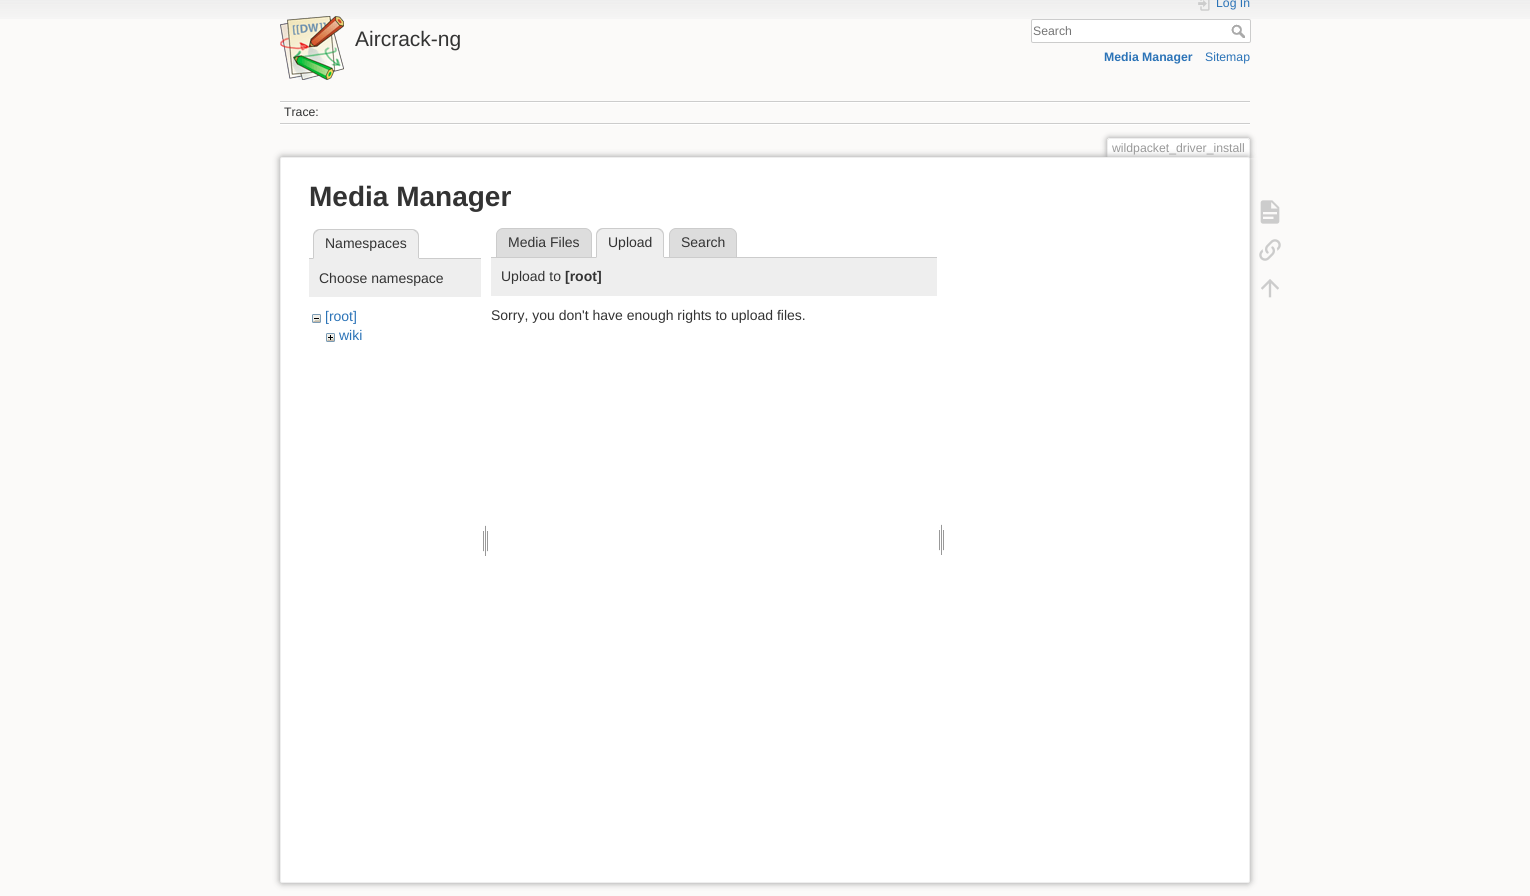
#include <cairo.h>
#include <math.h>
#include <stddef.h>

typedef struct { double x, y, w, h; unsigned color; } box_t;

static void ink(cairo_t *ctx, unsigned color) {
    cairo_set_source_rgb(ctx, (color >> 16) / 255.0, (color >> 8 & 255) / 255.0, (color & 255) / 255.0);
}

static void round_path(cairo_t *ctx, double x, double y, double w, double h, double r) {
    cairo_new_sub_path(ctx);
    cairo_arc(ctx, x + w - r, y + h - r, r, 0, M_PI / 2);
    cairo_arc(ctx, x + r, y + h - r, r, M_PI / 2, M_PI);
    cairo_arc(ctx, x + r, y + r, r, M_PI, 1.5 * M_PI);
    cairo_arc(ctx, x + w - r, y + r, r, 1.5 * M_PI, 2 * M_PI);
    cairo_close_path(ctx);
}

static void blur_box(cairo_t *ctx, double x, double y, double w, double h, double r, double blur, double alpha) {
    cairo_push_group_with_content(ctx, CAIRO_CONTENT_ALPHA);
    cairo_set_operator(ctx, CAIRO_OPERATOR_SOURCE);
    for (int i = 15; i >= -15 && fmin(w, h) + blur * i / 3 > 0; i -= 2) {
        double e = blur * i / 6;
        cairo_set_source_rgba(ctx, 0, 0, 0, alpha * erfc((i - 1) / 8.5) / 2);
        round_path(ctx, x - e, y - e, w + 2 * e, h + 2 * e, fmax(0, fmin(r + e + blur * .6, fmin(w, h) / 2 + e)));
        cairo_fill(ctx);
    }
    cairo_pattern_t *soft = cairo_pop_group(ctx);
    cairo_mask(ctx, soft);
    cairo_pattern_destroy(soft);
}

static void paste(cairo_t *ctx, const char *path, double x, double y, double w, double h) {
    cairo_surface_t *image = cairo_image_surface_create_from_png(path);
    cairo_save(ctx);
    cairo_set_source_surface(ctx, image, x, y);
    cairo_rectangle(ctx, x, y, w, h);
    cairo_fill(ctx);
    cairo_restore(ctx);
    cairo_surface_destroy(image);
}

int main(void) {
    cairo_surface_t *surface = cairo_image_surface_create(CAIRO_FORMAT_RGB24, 1530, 896);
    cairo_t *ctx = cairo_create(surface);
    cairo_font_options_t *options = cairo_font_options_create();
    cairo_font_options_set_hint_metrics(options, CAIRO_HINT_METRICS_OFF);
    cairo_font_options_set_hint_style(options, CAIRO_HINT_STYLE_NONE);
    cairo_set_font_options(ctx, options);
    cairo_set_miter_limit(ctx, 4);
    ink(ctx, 0xFBFAF9);
    cairo_paint(ctx);
    paste(ctx, "media/1.png", 0, 0, 1530, 19);
    paste(ctx, "media/2.png", 280, 16, 64, 64);
    cairo_select_font_face(ctx, "Liberation Sans", CAIRO_FONT_SLANT_NORMAL, CAIRO_FONT_WEIGHT_NORMAL);
    cairo_set_font_size(ctx, 21);
    ink(ctx, 0x333333);
    cairo_move_to(ctx, 355, 46);
    cairo_show_text(ctx, "Aircrack-ng");
    paste(ctx, "media/3.png", 1198, 0, 12, 11);
    cairo_set_font_size(ctx, 12.25);
    ink(ctx, 0x2B73B7);
    cairo_move_to(ctx, 1216, 7);
    cairo_show_text(ctx, "Log In");
    ink(ctx, 0xFFFFFF);
    round_path(ctx, 1031.5, 19.5, 219, 23, 1.5);
    cairo_fill_preserve(ctx);
    ink(ctx, 0xCCCCCC);
    cairo_set_line_width(ctx, 1);
    cairo_stroke(ctx);
    ink(ctx, 0x757575);
    cairo_move_to(ctx, 1033, 35);
    cairo_show_text(ctx, "Search");
    paste(ctx, "media/4.png", 1231, 24, 14, 14);
    cairo_select_font_face(ctx, "Liberation Sans", CAIRO_FONT_SLANT_NORMAL, CAIRO_FONT_WEIGHT_BOLD);
    ink(ctx, 0x2B73B7);
    cairo_move_to(ctx, 1104, 61);
    cairo_show_text(ctx, "Media Manager");
    cairo_select_font_face(ctx, "Liberation Sans", CAIRO_FONT_SLANT_NORMAL, CAIRO_FONT_WEIGHT_NORMAL);
    cairo_move_to(ctx, 1205, 61);
    cairo_show_text(ctx, "Sitemap");
    {
        static const box_t items[] = {
            {280, 101, 970, 1, 0xCCCCCC},
            {280, 124, 970, 1, 0xFFFFFF},
            {280, 102, 970, 1, 0xFFFFFF},
            {280, 123, 970, 1, 0xCCCCCC},
        };
        for (size_t i = 0; i < sizeof items / sizeof *items; i++) {
            ink(ctx, items[i].color);
            cairo_rectangle(ctx, items[i].x, items[i].y, items[i].w, items[i].h);
            cairo_fill(ctx);
        }
    }
    ink(ctx, 0x333333);
    cairo_move_to(ctx, 284, 116);
    cairo_show_text(ctx, "Trace:");
    cairo_save(ctx);
    cairo_rectangle(ctx, 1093, 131, 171, 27);
    cairo_clip(ctx);
    ink(ctx, 0x999999);
    blur_box(ctx, 1107, 138, 143, 20, 2, 3, 1);
    cairo_restore(ctx);
    ink(ctx, 0xFFFFFF);
    cairo_new_path(ctx);
    cairo_move_to(ctx, 1109, 139);
    cairo_line_to(ctx, 1248, 139);
    cairo_curve_to(ctx, 1248.5, 139, 1249, 139.5, 1249, 140);
    cairo_line_to(ctx, 1249, 158);
    cairo_line_to(ctx, 1108, 158);
    cairo_line_to(ctx, 1108, 140);
    cairo_curve_to(ctx, 1108, 139.5, 1108.5, 139, 1109, 139);
    cairo_close_path(ctx);
    cairo_fill(ctx);
    {
        static const box_t items[] = {
            {1108, 138, 141, 1, 0xEEEEEE},
            {1249, 139, 1, 19, 0xEEEEEE},
            {1107, 139, 1, 19, 0xEEEEEE},
        };
        for (size_t i = 0; i < sizeof items / sizeof *items; i++) {
            ink(ctx, items[i].color);
            cairo_rectangle(ctx, items[i].x, items[i].y, items[i].w, items[i].h);
            cairo_fill(ctx);
        }
    }
    ink(ctx, 0x999999);
    cairo_move_to(ctx, 1112, 152);
    cairo_show_text(ctx, "wildpacket_driver_install");
    ink(ctx, 0x999999);
    blur_box(ctx, 280, 157, 970, 726, 2, 3.5, 1);
    ink(ctx, 0xFFFFFF);
    round_path(ctx, 280.5, 157.5, 969, 725, 1.5);
    cairo_fill_preserve(ctx);
    ink(ctx, 0xEEEEEE);
    cairo_stroke(ctx);
    cairo_select_font_face(ctx, "Liberation Sans", CAIRO_FONT_SLANT_NORMAL, CAIRO_FONT_WEIGHT_BOLD);
    cairo_set_font_size(ctx, 28);
    ink(ctx, 0x333333);
    cairo_move_to(ctx, 309, 206);
    cairo_show_text(ctx, "Media Manager");
    ink(ctx, 0xCCCCCC);
    cairo_rectangle(ctx, 309, 258, 172, 1);
    cairo_fill(ctx);
    ink(ctx, 0xEEEEEE);
    cairo_new_path(ctx);
    cairo_move_to(ctx, 320, 229);
    cairo_line_to(ctx, 412, 229);
    cairo_curve_to(ctx, 416, 229, 419, 232, 419, 236);
    cairo_line_to(ctx, 419, 259);
    cairo_line_to(ctx, 313, 259);
    cairo_line_to(ctx, 313, 236);
    cairo_curve_to(ctx, 313, 232, 316, 229, 320, 229);
    cairo_close_path(ctx);
    cairo_fill(ctx);
    ink(ctx, 0xCCCCCC);
    cairo_new_path(ctx);
    cairo_move_to(ctx, 320, 229);
    cairo_curve_to(ctx, 318, 229, 316, 230, 315, 231);
    cairo_line_to(ctx, 316, 232);
    cairo_line_to(ctx, 319, 230);
    cairo_line_to(ctx, 413, 230);
    cairo_line_to(ctx, 416, 232);
    cairo_line_to(ctx, 417, 231);
    cairo_curve_to(ctx, 416, 230, 414, 229, 412, 229);
    cairo_close_path(ctx);
    cairo_fill(ctx);
    cairo_new_path(ctx);
    cairo_move_to(ctx, 419, 259);
    cairo_line_to(ctx, 419, 236);
    cairo_curve_to(ctx, 419, 234, 418, 232, 417, 231);
    cairo_line_to(ctx, 416, 232);
    cairo_curve_to(ctx, 417, 233, 418, 234.5, 418, 236);
    cairo_line_to(ctx, 418, 258);
    cairo_close_path(ctx);
    cairo_fill(ctx);
    ink(ctx, 0xEEEEEE);
    cairo_new_path(ctx);
    cairo_move_to(ctx, 419, 259);
    cairo_line_to(ctx, 418, 258);
    cairo_line_to(ctx, 314, 258);
    cairo_line_to(ctx, 313, 259);
    cairo_close_path(ctx);
    cairo_fill(ctx);
    ink(ctx, 0xCCCCCC);
    cairo_new_path(ctx);
    cairo_move_to(ctx, 313, 259);
    cairo_line_to(ctx, 314, 258);
    cairo_line_to(ctx, 314, 236);
    cairo_curve_to(ctx, 314, 234.5, 315, 233, 316, 232);
    cairo_line_to(ctx, 315, 231);
    cairo_curve_to(ctx, 314, 232, 313, 234, 313, 236);
    cairo_close_path(ctx);
    cairo_fill(ctx);
    cairo_select_font_face(ctx, "Liberation Sans", CAIRO_FONT_SLANT_NORMAL, CAIRO_FONT_WEIGHT_NORMAL);
    cairo_set_font_size(ctx, 14);
    ink(ctx, 0x333333);
    cairo_move_to(ctx, 325, 248);
    cairo_show_text(ctx, "Namespaces");
    ink(ctx, 0xEEEEEE);
    cairo_rectangle(ctx, 309, 259, 172, 38);
    cairo_fill(ctx);
    ink(ctx, 0x333333);
    cairo_move_to(ctx, 319, 283);
    cairo_show_text(ctx, "Choose namespace");
    paste(ctx, "media/5.png", 312, 314, 9, 9);
    ink(ctx, 0x2B73B7);
    cairo_move_to(ctx, 325, 321);
    cairo_show_text(ctx, "[root]");
    paste(ctx, "media/6.png", 326, 333, 9, 9);
    cairo_move_to(ctx, 339, 340);
    cairo_show_text(ctx, "wiki");
    paste(ctx, "media/7.png", 483, 525, 5, 31);
    ink(ctx, 0xDDDDDD);
    cairo_new_path(ctx);
    cairo_move_to(ctx, 503, 228.5);
    cairo_line_to(ctx, 585, 228.5);
    cairo_curve_to(ctx, 588.5, 228.5, 591.5, 231.5, 591.5, 235);
    cairo_line_to(ctx, 591.5, 257.5);
    cairo_line_to(ctx, 496.5, 257.5);
    cairo_line_to(ctx, 496.5, 235);
    cairo_curve_to(ctx, 496.5, 231.5, 499.5, 228.5, 503, 228.5);
    cairo_close_path(ctx);
    cairo_fill_preserve(ctx);
    ink(ctx, 0xCCCCCC);
    cairo_stroke(ctx);
    ink(ctx, 0x333333);
    cairo_move_to(ctx, 508, 247);
    cairo_show_text(ctx, "Media Files");
    ink(ctx, 0xDDDDDD);
    cairo_new_path(ctx);
    cairo_move_to(ctx, 676, 228.5);
    cairo_line_to(ctx, 730, 228.5);
    cairo_curve_to(ctx, 733.5, 228.5, 736.5, 231.5, 736.5, 235);
    cairo_line_to(ctx, 736.5, 257.5);
    cairo_line_to(ctx, 669.5, 257.5);
    cairo_line_to(ctx, 669.5, 235);
    cairo_curve_to(ctx, 669.5, 231.5, 672.5, 228.5, 676, 228.5);
    cairo_close_path(ctx);
    cairo_fill_preserve(ctx);
    ink(ctx, 0xCCCCCC);
    cairo_stroke(ctx);
    cairo_rectangle(ctx, 491, 257, 446, 1);
    cairo_fill(ctx);
    ink(ctx, 0xEEEEEE);
    cairo_new_path(ctx);
    cairo_move_to(ctx, 603, 228);
    cairo_line_to(ctx, 657, 228);
    cairo_curve_to(ctx, 661, 228, 664, 231, 664, 235);
    cairo_line_to(ctx, 664, 258);
    cairo_line_to(ctx, 596, 258);
    cairo_line_to(ctx, 596, 235);
    cairo_curve_to(ctx, 596, 231, 599, 228, 603, 228);
    cairo_close_path(ctx);
    cairo_fill(ctx);
    ink(ctx, 0xCCCCCC);
    cairo_new_path(ctx);
    cairo_move_to(ctx, 603, 228);
    cairo_curve_to(ctx, 601, 228, 599, 229, 598, 230);
    cairo_line_to(ctx, 599, 231);
    cairo_curve_to(ctx, 600, 230, 602, 229, 603, 229);
    cairo_line_to(ctx, 657, 229);
    cairo_curve_to(ctx, 658, 229, 660, 230, 661, 231);
    cairo_line_to(ctx, 662, 230);
    cairo_curve_to(ctx, 661, 229, 659, 228, 657, 228);
    cairo_close_path(ctx);
    cairo_fill(ctx);
    cairo_new_path(ctx);
    cairo_move_to(ctx, 664, 258);
    cairo_line_to(ctx, 664, 235);
    cairo_curve_to(ctx, 664, 233, 663, 231, 662, 230);
    cairo_line_to(ctx, 661, 231);
    cairo_curve_to(ctx, 662, 232, 663, 233.5, 663, 235);
    cairo_line_to(ctx, 663, 257);
    cairo_close_path(ctx);
    cairo_fill(ctx);
    ink(ctx, 0xEEEEEE);
    cairo_new_path(ctx);
    cairo_move_to(ctx, 664, 258);
    cairo_line_to(ctx, 663, 257);
    cairo_line_to(ctx, 597, 257);
    cairo_line_to(ctx, 596, 258);
    cairo_close_path(ctx);
    cairo_fill(ctx);
    ink(ctx, 0xCCCCCC);
    cairo_new_path(ctx);
    cairo_move_to(ctx, 596, 258);
    cairo_line_to(ctx, 597, 257);
    cairo_line_to(ctx, 597, 235);
    cairo_curve_to(ctx, 597, 233.5, 598, 232, 599, 231);
    cairo_line_to(ctx, 598, 230);
    cairo_curve_to(ctx, 597, 231, 596, 233, 596, 235);
    cairo_close_path(ctx);
    cairo_fill(ctx);
    ink(ctx, 0x333333);
    cairo_move_to(ctx, 608, 247);
    cairo_show_text(ctx, "Upload");
    cairo_move_to(ctx, 681, 247);
    cairo_show_text(ctx, "Search");
    ink(ctx, 0xEEEEEE);
    cairo_rectangle(ctx, 491, 258, 446, 38);
    cairo_fill(ctx);
    ink(ctx, 0x333333);
    cairo_move_to(ctx, 501, 281);
    cairo_show_text(ctx, "Upload to");
    cairo_select_font_face(ctx, "Liberation Sans", CAIRO_FONT_SLANT_NORMAL, CAIRO_FONT_WEIGHT_BOLD);
    cairo_move_to(ctx, 565, 281);
    cairo_show_text(ctx, "[root]");
    cairo_select_font_face(ctx, "Liberation Sans", CAIRO_FONT_SLANT_NORMAL, CAIRO_FONT_WEIGHT_NORMAL);
    cairo_move_to(ctx, 491, 320);
    cairo_show_text(ctx, "Sorry, you don't have enough rights to upload files.");
    paste(ctx, "media/7.png", 939, 524, 5, 31);
    paste(ctx, "media/8.png", 1260, 200, 20, 24);
    paste(ctx, "media/9.png", 1259, 239, 22, 22);
    paste(ctx, "media/10.png", 1261, 279, 18, 19);
    cairo_surface_write_to_png(surface, "image.png");
    cairo_font_options_destroy(options);
    cairo_destroy(ctx);
    cairo_surface_destroy(surface);
    return 0;
}
